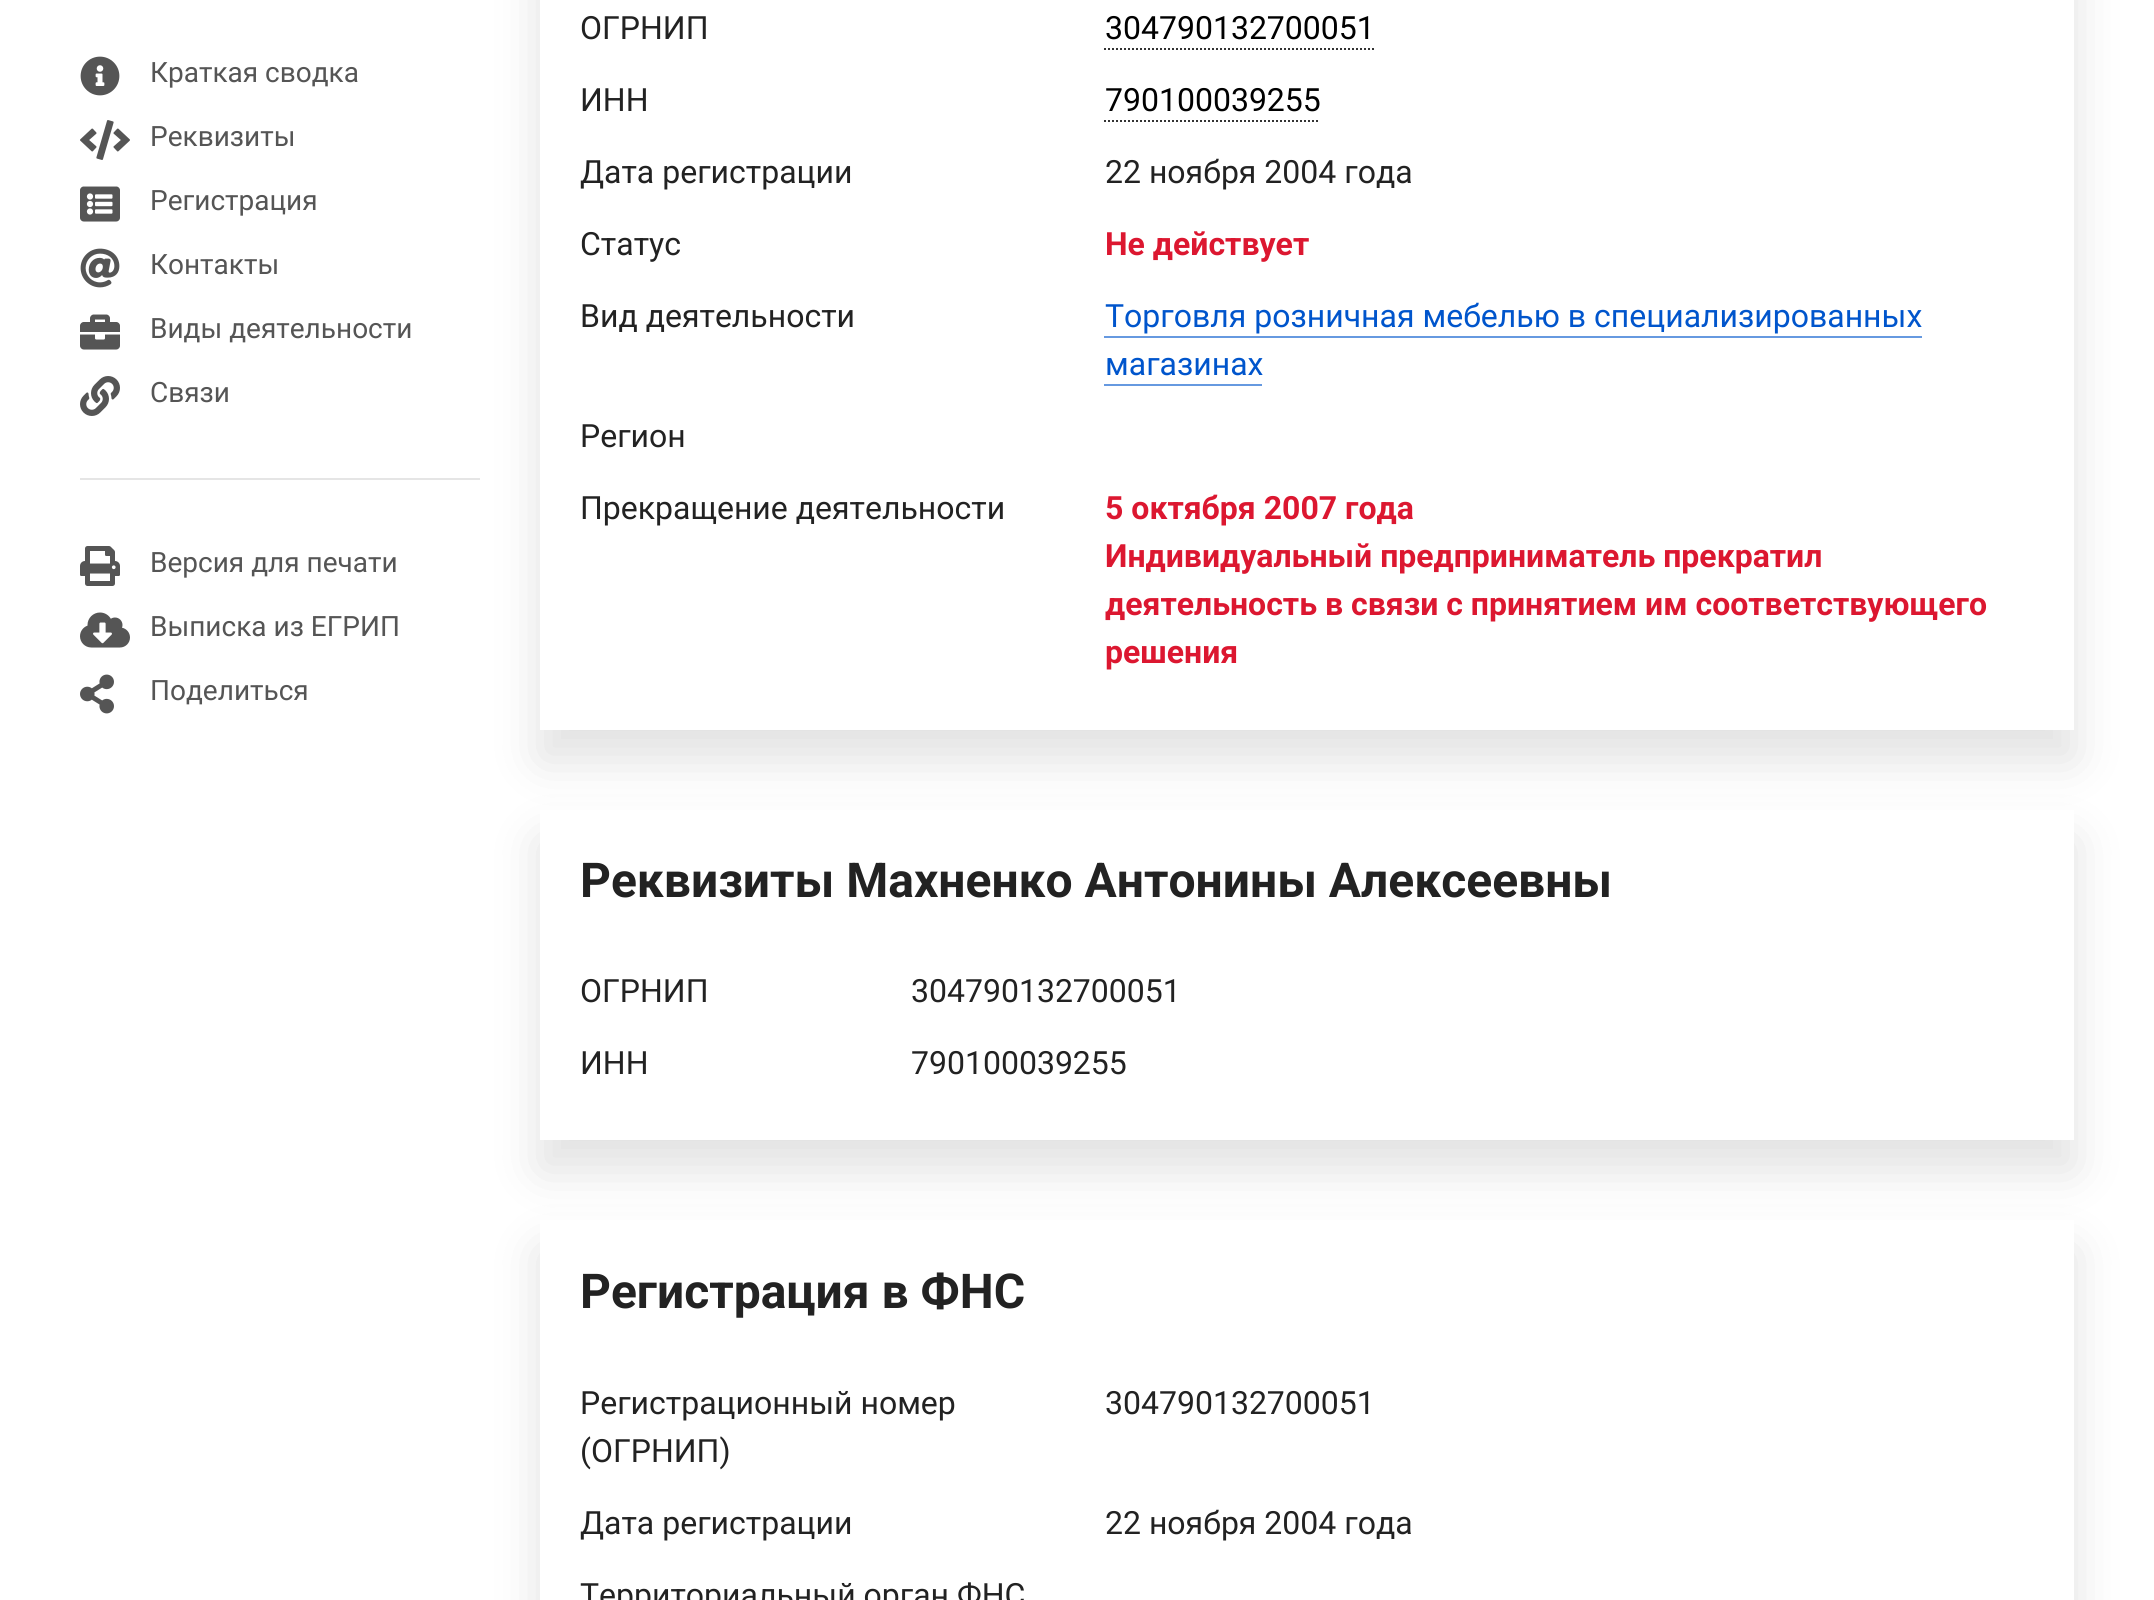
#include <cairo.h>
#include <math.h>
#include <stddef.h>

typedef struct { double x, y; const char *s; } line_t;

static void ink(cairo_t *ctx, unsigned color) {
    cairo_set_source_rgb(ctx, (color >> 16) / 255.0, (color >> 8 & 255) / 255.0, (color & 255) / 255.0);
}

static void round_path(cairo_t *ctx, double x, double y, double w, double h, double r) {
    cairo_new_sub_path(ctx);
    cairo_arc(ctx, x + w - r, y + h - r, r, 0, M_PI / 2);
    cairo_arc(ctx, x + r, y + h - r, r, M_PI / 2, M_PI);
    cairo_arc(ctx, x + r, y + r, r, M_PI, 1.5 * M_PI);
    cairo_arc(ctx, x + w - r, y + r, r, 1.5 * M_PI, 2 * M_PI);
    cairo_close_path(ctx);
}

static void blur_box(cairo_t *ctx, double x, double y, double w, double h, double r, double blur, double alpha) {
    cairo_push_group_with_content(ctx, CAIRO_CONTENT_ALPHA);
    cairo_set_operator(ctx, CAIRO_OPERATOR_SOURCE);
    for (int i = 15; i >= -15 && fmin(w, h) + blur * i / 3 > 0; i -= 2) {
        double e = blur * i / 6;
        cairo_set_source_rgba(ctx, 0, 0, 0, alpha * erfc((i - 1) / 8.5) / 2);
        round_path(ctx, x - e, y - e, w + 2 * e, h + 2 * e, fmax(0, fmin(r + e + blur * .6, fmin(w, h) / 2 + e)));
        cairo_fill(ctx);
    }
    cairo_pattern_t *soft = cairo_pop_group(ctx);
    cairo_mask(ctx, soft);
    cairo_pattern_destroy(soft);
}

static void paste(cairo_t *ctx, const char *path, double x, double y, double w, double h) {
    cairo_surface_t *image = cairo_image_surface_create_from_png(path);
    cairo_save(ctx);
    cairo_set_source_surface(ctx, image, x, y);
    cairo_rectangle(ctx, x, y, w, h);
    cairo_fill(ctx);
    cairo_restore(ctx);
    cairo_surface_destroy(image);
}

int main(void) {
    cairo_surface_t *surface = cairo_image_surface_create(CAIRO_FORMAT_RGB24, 2154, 1600);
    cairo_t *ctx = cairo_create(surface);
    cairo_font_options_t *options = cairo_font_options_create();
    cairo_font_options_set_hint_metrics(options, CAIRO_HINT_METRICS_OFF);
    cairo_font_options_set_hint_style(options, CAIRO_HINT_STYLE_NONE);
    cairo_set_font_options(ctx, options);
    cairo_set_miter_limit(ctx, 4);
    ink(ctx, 0xFFFFFF);
    cairo_paint(ctx);
    paste(ctx, "media/1.png", 80, 56, 40, 40);
    cairo_select_font_face(ctx, "Roboto", CAIRO_FONT_SLANT_NORMAL, CAIRO_FONT_WEIGHT_NORMAL);
    cairo_set_font_size(ctx, 28);
    ink(ctx, 0x555555);
    cairo_move_to(ctx, 150, 82);
    cairo_show_text(ctx, "Краткая сводка");
    paste(ctx, "media/2.png", 80, 120, 50, 40);
    cairo_move_to(ctx, 150, 146);
    cairo_show_text(ctx, "Реквизиты");
    paste(ctx, "media/3.png", 80, 186, 40, 36);
    cairo_move_to(ctx, 150, 210);
    cairo_show_text(ctx, "Регистрация");
    paste(ctx, "media/4.png", 80, 248, 40, 40);
    cairo_move_to(ctx, 150, 274);
    cairo_show_text(ctx, "Контакты");
    paste(ctx, "media/5.png", 80, 314, 40, 36);
    cairo_move_to(ctx, 150, 338);
    cairo_show_text(ctx, "Виды деятельности");
    paste(ctx, "media/6.png", 80, 376, 40, 40);
    cairo_move_to(ctx, 150, 402);
    cairo_show_text(ctx, "Связи");
    cairo_save(ctx);
    cairo_set_fill_rule(ctx, CAIRO_FILL_RULE_EVEN_ODD);
    cairo_new_path(ctx);
    cairo_move_to(ctx, 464, 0);
    cairo_line_to(ctx, 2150, 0);
    cairo_line_to(ctx, 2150, 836);
    cairo_line_to(ctx, 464, 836);
    cairo_close_path(ctx);
    cairo_move_to(ctx, 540, -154);
    cairo_line_to(ctx, 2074, -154);
    cairo_line_to(ctx, 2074, 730);
    cairo_line_to(ctx, 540, 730);
    cairo_close_path(ctx);
    cairo_clip(ctx);
    ink(ctx, 0x000000);
    blur_box(ctx, 540, -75, 1534, 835, 0, 25, 0.12);
    cairo_restore(ctx);
    ink(ctx, 0xE5E5E5);
    cairo_rectangle(ctx, 80, 478, 400, 2);
    cairo_fill(ctx);
    paste(ctx, "media/7.png", 80, 546, 40, 40);
    ink(ctx, 0x555555);
    cairo_move_to(ctx, 150, 572);
    cairo_show_text(ctx, "Версия для печати");
    paste(ctx, "media/8.png", 80, 612, 50, 36);
    cairo_move_to(ctx, 150, 636);
    cairo_show_text(ctx, "Выписка из ЕГРИП");
    paste(ctx, "media/9.png", 80, 674, 34, 40);
    cairo_move_to(ctx, 150, 700);
    cairo_show_text(ctx, "Поделиться");
    cairo_set_font_size(ctx, 32);
    ink(ctx, 0x222222);
    cairo_move_to(ctx, 580, 39);
    cairo_show_text(ctx, "ОГРНИП");
    ink(ctx, 0x000000);
    cairo_move_to(ctx, 1105, 39);
    cairo_show_text(ctx, "304790132700051");
    cairo_new_path(ctx);
    cairo_move_to(ctx, 1104, 49);
    cairo_line_to(ctx, 1374, 49);
    ink(ctx, 0x333333);
    cairo_set_dash(ctx, (double[]){2, 2}, 2, 0);
    cairo_stroke(ctx);
    ink(ctx, 0x222222);
    cairo_move_to(ctx, 580, 111);
    cairo_show_text(ctx, "ИНН");
    ink(ctx, 0x000000);
    cairo_move_to(ctx, 1105, 111);
    cairo_show_text(ctx, "790100039255");
    cairo_new_path(ctx);
    cairo_move_to(ctx, 1104, 121);
    cairo_line_to(ctx, 1320, 121);
    ink(ctx, 0x333333);
    cairo_stroke(ctx);
    ink(ctx, 0x222222);
    {
        static const line_t items[] = {
            {580, 183, "Дата регистрации"},
            {1105, 183, "22 ноября 2004 года"},
            {580, 255, "Статус"},
        };
        for (size_t i = 0; i < sizeof items / sizeof *items; i++) {
            cairo_move_to(ctx, items[i].x, items[i].y);
            cairo_show_text(ctx, items[i].s);
        }
    }
    cairo_select_font_face(ctx, "Roboto", CAIRO_FONT_SLANT_NORMAL, CAIRO_FONT_WEIGHT_BOLD);
    ink(ctx, 0xDC1730);
    cairo_move_to(ctx, 1105, 255);
    cairo_show_text(ctx, "Не действует");
    cairo_select_font_face(ctx, "Roboto", CAIRO_FONT_SLANT_NORMAL, CAIRO_FONT_WEIGHT_NORMAL);
    ink(ctx, 0x222222);
    cairo_move_to(ctx, 580, 327);
    cairo_show_text(ctx, "Вид деятельности");
    ink(ctx, 0x0055CC);
    cairo_move_to(ctx, 1105, 327);
    cairo_show_text(ctx, "Торговля розничная мебелью в специализированных");
    ink(ctx, 0x6699E0);
    cairo_rectangle(ctx, 1104, 336, 818, 2);
    cairo_fill(ctx);
    ink(ctx, 0x0055CC);
    cairo_move_to(ctx, 1105, 375);
    cairo_show_text(ctx, "магазинах");
    ink(ctx, 0x6699E0);
    cairo_rectangle(ctx, 1104, 384, 158, 2);
    cairo_fill(ctx);
    ink(ctx, 0x222222);
    cairo_move_to(ctx, 580, 447);
    cairo_show_text(ctx, "Регион");
    cairo_move_to(ctx, 580, 519);
    cairo_show_text(ctx, "Прекращение деятельности");
    cairo_select_font_face(ctx, "Roboto", CAIRO_FONT_SLANT_NORMAL, CAIRO_FONT_WEIGHT_BOLD);
    ink(ctx, 0xDC1730);
    {
        static const line_t items[] = {
            {1105, 519, "5 октября 2007 года"},
            {1105, 567, "Индивидуальный предприниматель прекратил"},
            {1105, 615, "деятельность в связи с принятием им соответствующего"},
            {1105, 663, "решения"},
        };
        for (size_t i = 0; i < sizeof items / sizeof *items; i++) {
            cairo_move_to(ctx, items[i].x, items[i].y);
            cairo_show_text(ctx, items[i].s);
        }
    }
    cairo_save(ctx);
    cairo_set_fill_rule(ctx, CAIRO_FILL_RULE_EVEN_ODD);
    cairo_new_path(ctx);
    cairo_move_to(ctx, 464, 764);
    cairo_line_to(ctx, 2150, 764);
    cairo_line_to(ctx, 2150, 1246);
    cairo_line_to(ctx, 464, 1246);
    cairo_close_path(ctx);
    cairo_move_to(ctx, 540, 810);
    cairo_line_to(ctx, 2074, 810);
    cairo_line_to(ctx, 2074, 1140);
    cairo_line_to(ctx, 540, 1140);
    cairo_close_path(ctx);
    cairo_clip(ctx);
    ink(ctx, 0x000000);
    blur_box(ctx, 540, 840, 1534, 330, 0, 25, 0.12);
    cairo_restore(ctx);
    cairo_set_font_size(ctx, 48);
    ink(ctx, 0x222222);
    cairo_move_to(ctx, 580, 897);
    cairo_show_text(ctx, "Реквизиты Махненко Антонины Алексеевны");
    cairo_select_font_face(ctx, "Roboto", CAIRO_FONT_SLANT_NORMAL, CAIRO_FONT_WEIGHT_NORMAL);
    cairo_set_font_size(ctx, 32);
    {
        static const line_t items[] = {
            {580, 1002, "ОГРНИП"},
            {911, 1002, "304790132700051"},
            {580, 1074, "ИНН"},
            {911, 1074, "790100039255"},
        };
        for (size_t i = 0; i < sizeof items / sizeof *items; i++) {
            cairo_move_to(ctx, items[i].x, items[i].y);
            cairo_show_text(ctx, items[i].s);
        }
    }
    cairo_save(ctx);
    cairo_set_fill_rule(ctx, CAIRO_FILL_RULE_EVEN_ODD);
    cairo_new_path(ctx);
    cairo_move_to(ctx, 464, 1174);
    cairo_line_to(ctx, 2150, 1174);
    cairo_line_to(ctx, 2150, 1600);
    cairo_line_to(ctx, 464, 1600);
    cairo_close_path(ctx);
    cairo_move_to(ctx, 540, 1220);
    cairo_line_to(ctx, 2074, 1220);
    cairo_line_to(ctx, 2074, 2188);
    cairo_line_to(ctx, 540, 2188);
    cairo_close_path(ctx);
    cairo_clip(ctx);
    ink(ctx, 0x000000);
    blur_box(ctx, 540, 1250, 1534, 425, 0, 25, 0.12);
    cairo_restore(ctx);
    cairo_select_font_face(ctx, "Roboto", CAIRO_FONT_SLANT_NORMAL, CAIRO_FONT_WEIGHT_BOLD);
    cairo_set_font_size(ctx, 48);
    cairo_move_to(ctx, 580, 1308);
    cairo_show_text(ctx, "Регистрация в ФНС");
    cairo_select_font_face(ctx, "Roboto", CAIRO_FONT_SLANT_NORMAL, CAIRO_FONT_WEIGHT_NORMAL);
    cairo_set_font_size(ctx, 32);
    {
        static const line_t items[] = {
            {580, 1414, "Регистрационный номер"},
            {580, 1462, "(ОГРНИП)"},
            {1105, 1414, "304790132700051"},
            {580, 1534, "Дата регистрации"},
            {1105, 1534, "22 ноября 2004 года"},
            {580, 1606, "Территориальный орган ФНС"},
        };
        for (size_t i = 0; i < sizeof items / sizeof *items; i++) {
            cairo_move_to(ctx, items[i].x, items[i].y);
            cairo_show_text(ctx, items[i].s);
        }
    }
    cairo_surface_write_to_png(surface, "image.png");
    cairo_font_options_destroy(options);
    cairo_destroy(ctx);
    cairo_surface_destroy(surface);
    return 0;
}
